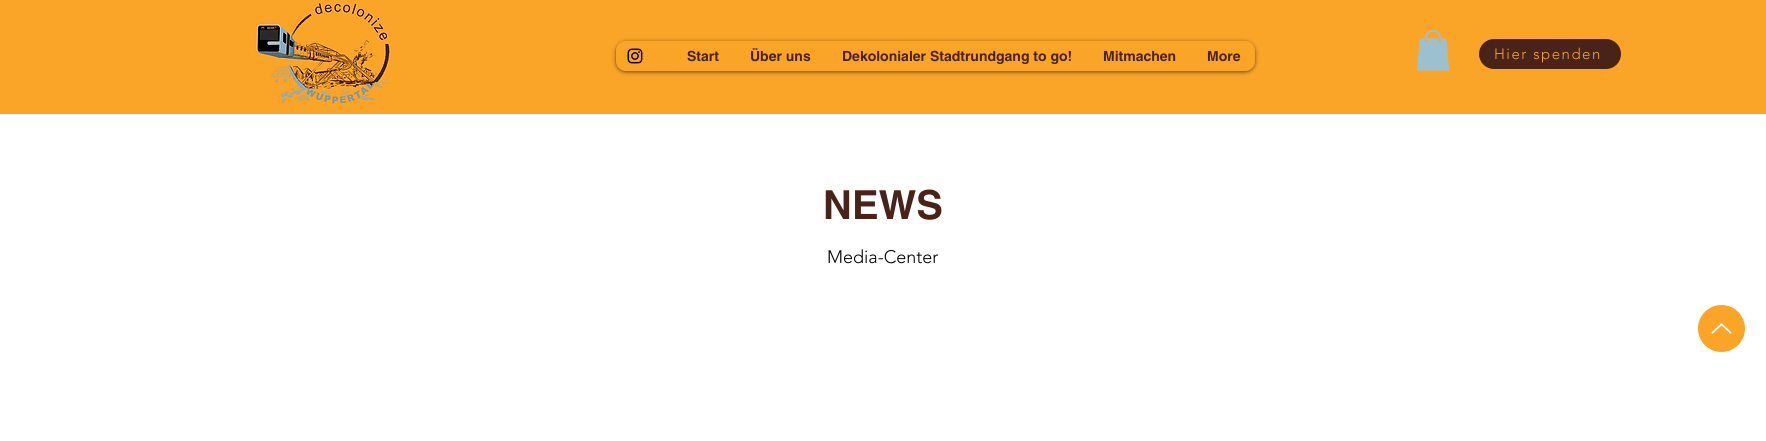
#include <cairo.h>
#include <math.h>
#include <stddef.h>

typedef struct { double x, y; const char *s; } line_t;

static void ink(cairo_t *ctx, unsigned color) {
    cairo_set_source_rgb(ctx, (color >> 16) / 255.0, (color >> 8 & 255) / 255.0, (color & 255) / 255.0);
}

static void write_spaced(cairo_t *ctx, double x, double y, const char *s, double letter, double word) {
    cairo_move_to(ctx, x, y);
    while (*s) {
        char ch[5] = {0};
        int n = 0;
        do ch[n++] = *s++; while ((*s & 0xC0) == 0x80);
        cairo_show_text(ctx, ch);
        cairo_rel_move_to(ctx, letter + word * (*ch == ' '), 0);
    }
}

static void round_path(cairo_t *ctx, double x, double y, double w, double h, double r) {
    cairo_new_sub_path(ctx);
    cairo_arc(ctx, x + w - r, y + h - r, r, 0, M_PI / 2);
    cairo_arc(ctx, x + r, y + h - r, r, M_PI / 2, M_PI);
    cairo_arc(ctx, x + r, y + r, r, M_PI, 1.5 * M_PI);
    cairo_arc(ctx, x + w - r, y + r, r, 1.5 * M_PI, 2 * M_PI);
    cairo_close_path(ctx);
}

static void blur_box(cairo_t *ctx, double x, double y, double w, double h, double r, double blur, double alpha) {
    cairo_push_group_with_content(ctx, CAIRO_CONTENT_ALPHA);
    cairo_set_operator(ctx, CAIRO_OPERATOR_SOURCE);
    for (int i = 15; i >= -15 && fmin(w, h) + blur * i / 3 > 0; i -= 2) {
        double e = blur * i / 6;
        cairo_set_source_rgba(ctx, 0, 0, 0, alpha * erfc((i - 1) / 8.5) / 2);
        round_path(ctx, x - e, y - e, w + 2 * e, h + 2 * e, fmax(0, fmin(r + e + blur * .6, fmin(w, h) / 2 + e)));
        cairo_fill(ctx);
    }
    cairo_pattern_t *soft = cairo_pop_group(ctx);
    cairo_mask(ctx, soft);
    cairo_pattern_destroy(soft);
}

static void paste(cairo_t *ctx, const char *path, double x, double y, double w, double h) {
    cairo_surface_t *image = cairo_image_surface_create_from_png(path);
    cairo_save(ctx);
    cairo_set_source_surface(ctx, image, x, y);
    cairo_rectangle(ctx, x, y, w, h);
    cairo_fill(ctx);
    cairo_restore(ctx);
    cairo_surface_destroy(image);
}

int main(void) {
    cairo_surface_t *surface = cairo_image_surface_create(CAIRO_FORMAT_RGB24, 1766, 441);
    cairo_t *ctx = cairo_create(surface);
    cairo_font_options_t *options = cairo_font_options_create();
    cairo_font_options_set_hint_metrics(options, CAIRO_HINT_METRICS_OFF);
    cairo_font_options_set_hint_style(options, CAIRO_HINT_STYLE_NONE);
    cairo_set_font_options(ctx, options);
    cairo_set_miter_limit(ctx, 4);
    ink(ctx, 0xFFFFFF);
    cairo_paint(ctx);
    ink(ctx, 0xFAA428);
    cairo_rectangle(ctx, 0, 0, 1766, 114);
    cairo_fill(ctx);
    paste(ctx, "media/1.png", 255, 2, 137, 102);
    cairo_save(ctx);
    cairo_set_fill_rule(ctx, CAIRO_FILL_RULE_EVEN_ODD);
    cairo_new_path(ctx);
    cairo_move_to(ctx, 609, 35);
    cairo_line_to(ctx, 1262, 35);
    cairo_line_to(ctx, 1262, 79);
    cairo_line_to(ctx, 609, 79);
    cairo_close_path(ctx);
    cairo_move_to(ctx, 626, 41);
    cairo_line_to(ctx, 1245, 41);
    cairo_curve_to(ctx, 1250.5, 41, 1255, 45.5, 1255, 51);
    cairo_line_to(ctx, 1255, 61);
    cairo_curve_to(ctx, 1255, 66.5, 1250.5, 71, 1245, 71);
    cairo_line_to(ctx, 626, 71);
    cairo_curve_to(ctx, 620.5, 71, 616, 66.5, 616, 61);
    cairo_line_to(ctx, 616, 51);
    cairo_curve_to(ctx, 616, 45.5, 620.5, 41, 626, 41);
    cairo_close_path(ctx);
    cairo_clip(ctx);
    ink(ctx, 0x000000);
    blur_box(ctx, 616, 42, 639, 30, 10, 2, 0.6);
    cairo_restore(ctx);
    paste(ctx, "media/2.png", 627, 48, 16, 16);
    cairo_select_font_face(ctx, "helvetica", CAIRO_FONT_SLANT_NORMAL, CAIRO_FONT_WEIGHT_BOLD);
    cairo_set_font_size(ctx, 14);
    ink(ctx, 0x492219);
    {
        static const line_t items[] = {
            {687, 61, "Start"},
            {750, 61, "Über uns"},
            {842, 61, "Dekolonialer Stadtrundgang to go!"},
            {1103, 61, "Mitmachen"},
            {1207, 61, "More"},
        };
        for (size_t i = 0; i < sizeof items / sizeof *items; i++) {
            cairo_move_to(ctx, items[i].x, items[i].y);
            cairo_show_text(ctx, items[i].s);
        }
    }
    paste(ctx, "media/3.png", 1416, 30, 34, 41);
    round_path(ctx, 1479, 39, 142, 30, 15);
    cairo_fill(ctx);
    cairo_select_font_face(ctx, "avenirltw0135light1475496 Light", CAIRO_FONT_SLANT_NORMAL, CAIRO_FONT_WEIGHT_NORMAL);
    cairo_set_font_size(ctx, 15);
    ink(ctx, 0xFAA428);
    write_spaced(ctx, 1494, 59, "Hier spenden", 1.5, 0);
    cairo_select_font_face(ctx, "helvetica", CAIRO_FONT_SLANT_NORMAL, CAIRO_FONT_WEIGHT_BOLD);
    cairo_set_font_size(ctx, 40);
    ink(ctx, 0x492219);
    cairo_move_to(ctx, 823, 219);
    cairo_show_text(ctx, "NEWS");
    cairo_select_font_face(ctx, "avenirltw0135light1475496 Light", CAIRO_FONT_SLANT_NORMAL, CAIRO_FONT_WEIGHT_NORMAL);
    cairo_set_font_size(ctx, 18);
    ink(ctx, 0x000000);
    cairo_move_to(ctx, 827, 263);
    cairo_show_text(ctx, "Media-Center");
    ink(ctx, 0xFAA428);
    cairo_new_path(ctx);
    cairo_arc(ctx, 1721.5, 328.5, 23.5, 0, 2 * M_PI);
    cairo_fill(ctx);
    paste(ctx, "media/4.png", 1711, 323, 21, 11);
    cairo_surface_write_to_png(surface, "image.png");
    cairo_font_options_destroy(options);
    cairo_destroy(ctx);
    cairo_surface_destroy(surface);
    return 0;
}
